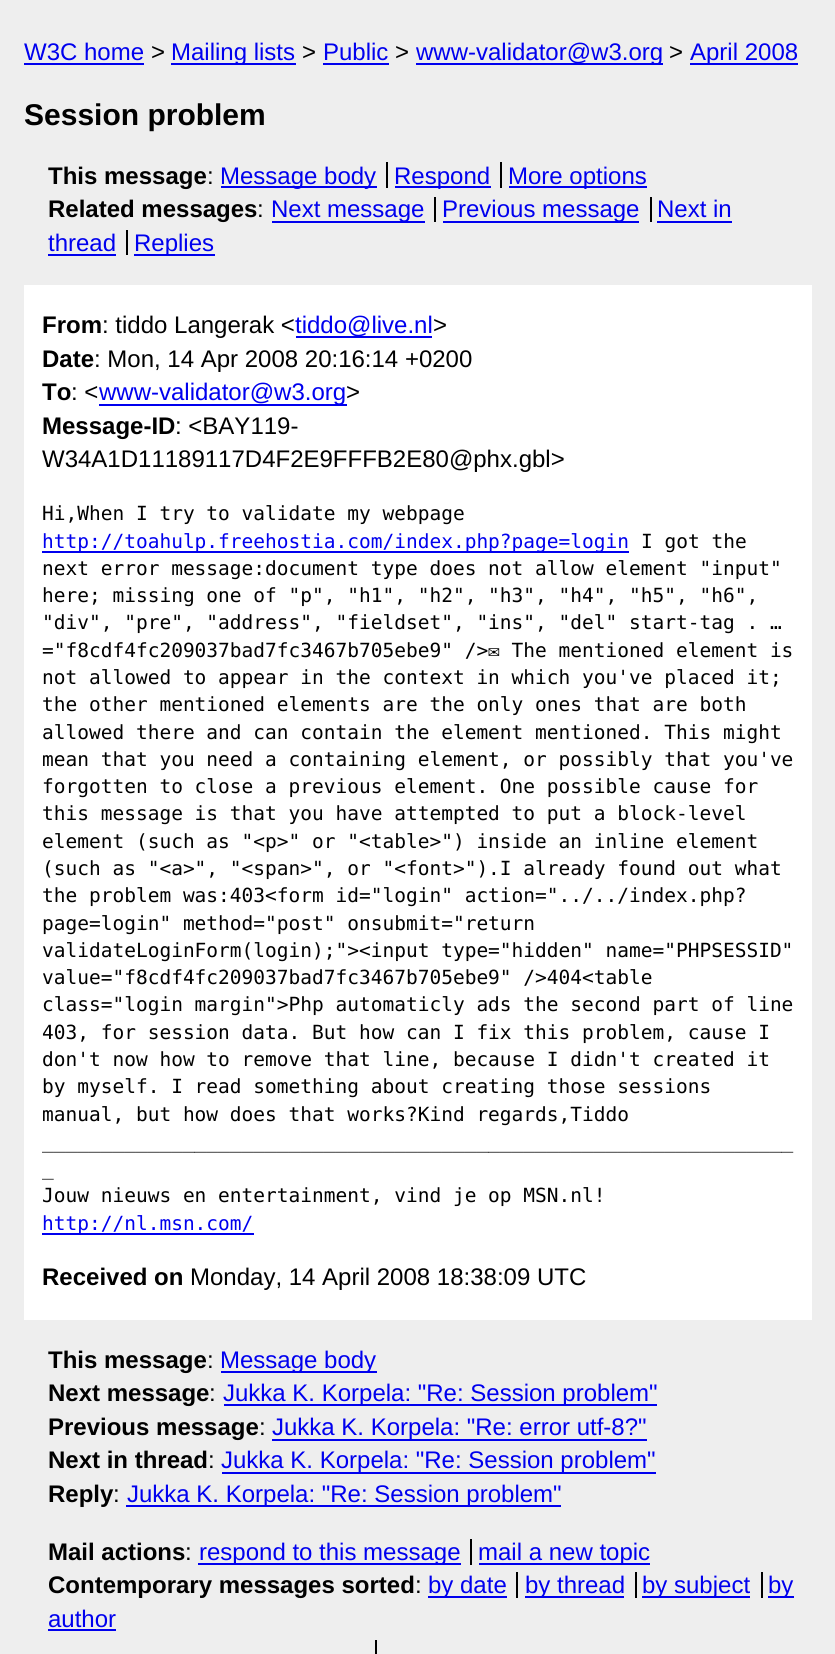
#include <cairo.h>
#include <math.h>
#include <stddef.h>

typedef struct { double x, y; const char *s; } line_t;
typedef struct { double x, y, w, h; unsigned color; } box_t;

static void ink(cairo_t *ctx, unsigned color) {
    cairo_set_source_rgb(ctx, (color >> 16) / 255.0, (color >> 8 & 255) / 255.0, (color & 255) / 255.0);
}

int main(void) {
    cairo_surface_t *surface = cairo_image_surface_create(CAIRO_FORMAT_RGB24, 835, 1654);
    cairo_t *ctx = cairo_create(surface);
    cairo_font_options_t *options = cairo_font_options_create();
    cairo_font_options_set_hint_metrics(options, CAIRO_HINT_METRICS_OFF);
    cairo_font_options_set_hint_style(options, CAIRO_HINT_STYLE_NONE);
    cairo_set_font_options(ctx, options);
    cairo_set_miter_limit(ctx, 4);
    ink(ctx, 0xEEEEEE);
    cairo_paint(ctx);
    cairo_select_font_face(ctx, "Liberation Sans", CAIRO_FONT_SLANT_NORMAL, CAIRO_FONT_WEIGHT_NORMAL);
    cairo_set_font_size(ctx, 24);
    ink(ctx, 0x0000EE);
    cairo_move_to(ctx, 24, 60);
    cairo_show_text(ctx, "W3C home");
    cairo_rectangle(ctx, 24, 63, 120, 2);
    cairo_fill(ctx);
    ink(ctx, 0x000000);
    cairo_move_to(ctx, 151, 60);
    cairo_show_text(ctx, ">");
    ink(ctx, 0x0000EE);
    cairo_rectangle(ctx, 171, 63, 125, 2);
    cairo_fill(ctx);
    cairo_move_to(ctx, 171, 60);
    cairo_show_text(ctx, "Mailing lists");
    ink(ctx, 0x000000);
    cairo_move_to(ctx, 302, 60);
    cairo_show_text(ctx, ">");
    ink(ctx, 0x0000EE);
    cairo_move_to(ctx, 323, 60);
    cairo_show_text(ctx, "Public");
    cairo_rectangle(ctx, 323, 63, 66, 2);
    cairo_fill(ctx);
    ink(ctx, 0x000000);
    cairo_move_to(ctx, 395, 60);
    cairo_show_text(ctx, ">");
    ink(ctx, 0x0000EE);
    cairo_rectangle(ctx, 416, 63, 247, 2);
    cairo_fill(ctx);
    cairo_move_to(ctx, 416, 60);
    cairo_show_text(ctx, "www-validator@w3.org");
    ink(ctx, 0x000000);
    cairo_move_to(ctx, 669, 60);
    cairo_show_text(ctx, ">");
    ink(ctx, 0x0000EE);
    cairo_rectangle(ctx, 690, 63, 108, 2);
    cairo_fill(ctx);
    cairo_move_to(ctx, 690, 60);
    cairo_show_text(ctx, "April 2008");
    cairo_select_font_face(ctx, "Liberation Sans", CAIRO_FONT_SLANT_NORMAL, CAIRO_FONT_WEIGHT_BOLD);
    cairo_set_font_size(ctx, 30);
    ink(ctx, 0x000000);
    cairo_move_to(ctx, 24, 125);
    cairo_show_text(ctx, "Session problem");
    cairo_set_font_size(ctx, 24);
    cairo_move_to(ctx, 48, 184);
    cairo_show_text(ctx, "This message");
    cairo_select_font_face(ctx, "Liberation Sans", CAIRO_FONT_SLANT_NORMAL, CAIRO_FONT_WEIGHT_NORMAL);
    cairo_move_to(ctx, 207, 184);
    cairo_show_text(ctx, ":");
    ink(ctx, 0x0000EE);
    cairo_rectangle(ctx, 221, 186, 156, 2);
    cairo_fill(ctx);
    cairo_move_to(ctx, 220, 184);
    cairo_show_text(ctx, "Message body");
    cairo_rectangle(ctx, 395, 186, 96, 2);
    cairo_fill(ctx);
    cairo_move_to(ctx, 394, 184);
    cairo_show_text(ctx, "Respond");
    ink(ctx, 0x000000);
    cairo_rectangle(ctx, 386, 162, 2, 26);
    cairo_fill(ctx);
    ink(ctx, 0x0000EE);
    cairo_rectangle(ctx, 509, 186, 138, 2);
    cairo_fill(ctx);
    cairo_move_to(ctx, 508, 184);
    cairo_show_text(ctx, "More options");
    ink(ctx, 0x000000);
    cairo_rectangle(ctx, 500, 162, 2, 26);
    cairo_fill(ctx);
    cairo_select_font_face(ctx, "Liberation Sans", CAIRO_FONT_SLANT_NORMAL, CAIRO_FONT_WEIGHT_BOLD);
    cairo_move_to(ctx, 48, 217);
    cairo_show_text(ctx, "Related messages");
    cairo_select_font_face(ctx, "Liberation Sans", CAIRO_FONT_SLANT_NORMAL, CAIRO_FONT_WEIGHT_NORMAL);
    cairo_move_to(ctx, 257, 217);
    cairo_show_text(ctx, ":");
    ink(ctx, 0x0000EE);
    cairo_rectangle(ctx, 272, 221, 153, 2);
    cairo_fill(ctx);
    cairo_move_to(ctx, 271, 217);
    cairo_show_text(ctx, "Next message");
    cairo_rectangle(ctx, 443, 221, 196, 2);
    cairo_fill(ctx);
    cairo_move_to(ctx, 442, 217);
    cairo_show_text(ctx, "Previous message");
    ink(ctx, 0x000000);
    cairo_rectangle(ctx, 434, 197, 2, 25);
    cairo_fill(ctx);
    ink(ctx, 0x0000EE);
    cairo_move_to(ctx, 657, 217);
    cairo_show_text(ctx, "Next in");
    ink(ctx, 0x000000);
    cairo_rectangle(ctx, 650, 197, 2, 25);
    cairo_fill(ctx);
    ink(ctx, 0x0000EE);
    cairo_rectangle(ctx, 657, 221, 75, 2);
    cairo_fill(ctx);
    cairo_move_to(ctx, 48, 251);
    cairo_show_text(ctx, "thread");
    {
        static const box_t items[] = {
            {126, 230, 2, 25, 0x000000},
            {48, 254, 68, 2, 0x0000EE},
            {134, 254, 81, 2, 0x0000EE},
        };
        for (size_t i = 0; i < sizeof items / sizeof *items; i++) {
            ink(ctx, items[i].color);
            cairo_rectangle(ctx, items[i].x, items[i].y, items[i].w, items[i].h);
            cairo_fill(ctx);
        }
    }
    cairo_move_to(ctx, 134, 251);
    cairo_show_text(ctx, "Replies");
    ink(ctx, 0xFFFFFF);
    cairo_rectangle(ctx, 24, 285, 788, 1035);
    cairo_fill(ctx);
    cairo_select_font_face(ctx, "Liberation Sans", CAIRO_FONT_SLANT_NORMAL, CAIRO_FONT_WEIGHT_BOLD);
    ink(ctx, 0x000000);
    cairo_move_to(ctx, 42, 333);
    cairo_show_text(ctx, "From");
    cairo_select_font_face(ctx, "Liberation Sans", CAIRO_FONT_SLANT_NORMAL, CAIRO_FONT_WEIGHT_NORMAL);
    cairo_move_to(ctx, 102, 333);
    cairo_show_text(ctx, ": tiddo Langerak <");
    ink(ctx, 0x0000EE);
    cairo_rectangle(ctx, 296, 336, 136, 2);
    cairo_fill(ctx);
    cairo_move_to(ctx, 295, 333);
    cairo_show_text(ctx, "tiddo@live.nl");
    ink(ctx, 0x000000);
    cairo_move_to(ctx, 433, 333);
    cairo_show_text(ctx, ">");
    cairo_select_font_face(ctx, "Liberation Sans", CAIRO_FONT_SLANT_NORMAL, CAIRO_FONT_WEIGHT_BOLD);
    cairo_move_to(ctx, 42, 367);
    cairo_show_text(ctx, "Date");
    cairo_select_font_face(ctx, "Liberation Sans", CAIRO_FONT_SLANT_NORMAL, CAIRO_FONT_WEIGHT_NORMAL);
    cairo_move_to(ctx, 94, 367);
    cairo_show_text(ctx, ": Mon, 14 Apr 2008 20:16:14 +0200");
    cairo_select_font_face(ctx, "Liberation Sans", CAIRO_FONT_SLANT_NORMAL, CAIRO_FONT_WEIGHT_BOLD);
    cairo_move_to(ctx, 42, 400);
    cairo_show_text(ctx, "To");
    cairo_select_font_face(ctx, "Liberation Sans", CAIRO_FONT_SLANT_NORMAL, CAIRO_FONT_WEIGHT_NORMAL);
    cairo_move_to(ctx, 71, 400);
    cairo_show_text(ctx, ": <");
    ink(ctx, 0x0000EE);
    cairo_rectangle(ctx, 99, 404, 248, 2);
    cairo_fill(ctx);
    cairo_move_to(ctx, 99, 400);
    cairo_show_text(ctx, "www-validator@w3.org");
    ink(ctx, 0x000000);
    cairo_move_to(ctx, 346, 400);
    cairo_show_text(ctx, ">");
    cairo_select_font_face(ctx, "Liberation Sans", CAIRO_FONT_SLANT_NORMAL, CAIRO_FONT_WEIGHT_BOLD);
    cairo_move_to(ctx, 42, 434);
    cairo_show_text(ctx, "Message-ID");
    cairo_select_font_face(ctx, "Liberation Sans", CAIRO_FONT_SLANT_NORMAL, CAIRO_FONT_WEIGHT_NORMAL);
    cairo_move_to(ctx, 175, 434);
    cairo_show_text(ctx, ": <BAY119-");
    cairo_move_to(ctx, 42, 467);
    cairo_show_text(ctx, "W34A1D11189117D4F2E9FFFB2E80@phx.gbl>");
    cairo_select_font_face(ctx, "DejaVu Sans Mono", CAIRO_FONT_SLANT_NORMAL, CAIRO_FONT_WEIGHT_NORMAL);
    cairo_set_font_size(ctx, 19.5);
    cairo_move_to(ctx, 42, 520);
    cairo_show_text(ctx, "Hi,When I try to validate my webpage");
    ink(ctx, 0x0000EE);
    cairo_rectangle(ctx, 42, 551, 587, 2);
    cairo_fill(ctx);
    cairo_move_to(ctx, 42, 548);
    cairo_show_text(ctx, "http://toahulp.freehostia.com/index.php?page=login");
    ink(ctx, 0x000000);
    {
        static const line_t items[] = {
            {641, 548, "I got the"},
            {42, 575, "next error message:document type does not allow element \"input\""},
            {42, 602, "here; missing one of \"p\", \"h1\", \"h2\", \"h3\", \"h4\", \"h5\", \"h6\","},
            {42, 629, "\"div\", \"pre\", \"address\", \"fieldset\", \"ins\", \"del\" start-tag . …"},
            {42, 657, "=\"f8cdf4fc209037bad7fc3467b705ebe9\" />✉ The mentioned element is"},
            {42, 684, "not allowed to appear in the context in which you've placed it;"},
            {42, 711, "the other mentioned elements are the only ones that are both"},
            {42, 739, "allowed there and can contain the element mentioned. This might"},
            {42, 766, "mean that you need a containing element, or possibly that you've"},
            {42, 793, "forgotten to close a previous element. One possible cause for"},
            {42, 820, "this message is that you have attempted to put a block-level"},
            {42, 848, "element (such as \"<p>\" or \"<table>\") inside an inline element"},
            {42, 875, "(such as \"<a>\", \"<span>\", or \"<font>\").I already found out what"},
            {42, 902, "the problem was:403<form id=\"login\" action=\"../../index.php?"},
            {42, 930, "page=login\" method=\"post\" onsubmit=\"return"},
            {42, 957, "validateLoginForm(login);\"><input type=\"hidden\" name=\"PHPSESSID\""},
            {42, 984, "value=\"f8cdf4fc209037bad7fc3467b705ebe9\" />404<table"},
            {42, 1011, "class=\"login margin\">Php automaticly ads the second part of line"},
            {42, 1039, "403, for session data. But how can I fix this problem, cause I"},
            {42, 1066, "don't now how to remove that line, because I didn't created it"},
            {42, 1093, "by myself. I read something about creating those sessions"},
            {42, 1121, "manual, but how does that works?Kind regards,Tiddo"},
            {42, 1148, "________________________________________________________________"},
            {42, 1175, "_"},
            {42, 1202, "Jouw nieuws en entertainment, vind je op MSN.nl!"},
        };
        for (size_t i = 0; i < sizeof items / sizeof *items; i++) {
            cairo_move_to(ctx, items[i].x, items[i].y);
            cairo_show_text(ctx, items[i].s);
        }
    }
    ink(ctx, 0x0000EE);
    cairo_rectangle(ctx, 42, 1233, 212, 2);
    cairo_fill(ctx);
    cairo_move_to(ctx, 42, 1230);
    cairo_show_text(ctx, "http://nl.msn.com/");
    cairo_select_font_face(ctx, "Liberation Sans", CAIRO_FONT_SLANT_NORMAL, CAIRO_FONT_WEIGHT_BOLD);
    cairo_set_font_size(ctx, 24);
    ink(ctx, 0x000000);
    cairo_move_to(ctx, 42, 1285);
    cairo_show_text(ctx, "Received on");
    cairo_select_font_face(ctx, "Liberation Sans", CAIRO_FONT_SLANT_NORMAL, CAIRO_FONT_WEIGHT_NORMAL);
    cairo_move_to(ctx, 190, 1285);
    cairo_show_text(ctx, "Monday, 14 April 2008 18:38:09 UTC");
    cairo_select_font_face(ctx, "Liberation Sans", CAIRO_FONT_SLANT_NORMAL, CAIRO_FONT_WEIGHT_BOLD);
    cairo_move_to(ctx, 48, 1368);
    cairo_show_text(ctx, "This message");
    cairo_select_font_face(ctx, "Liberation Sans", CAIRO_FONT_SLANT_NORMAL, CAIRO_FONT_WEIGHT_NORMAL);
    cairo_move_to(ctx, 207, 1368);
    cairo_show_text(ctx, ":");
    ink(ctx, 0x0000EE);
    cairo_rectangle(ctx, 221, 1371, 156, 2);
    cairo_fill(ctx);
    cairo_move_to(ctx, 220, 1368);
    cairo_show_text(ctx, "Message body");
    cairo_select_font_face(ctx, "Liberation Sans", CAIRO_FONT_SLANT_NORMAL, CAIRO_FONT_WEIGHT_BOLD);
    ink(ctx, 0x000000);
    cairo_move_to(ctx, 48, 1401);
    cairo_show_text(ctx, "Next message");
    cairo_select_font_face(ctx, "Liberation Sans", CAIRO_FONT_SLANT_NORMAL, CAIRO_FONT_WEIGHT_NORMAL);
    cairo_move_to(ctx, 209, 1401);
    cairo_show_text(ctx, ":");
    ink(ctx, 0x0000EE);
    cairo_rectangle(ctx, 224, 1404, 433, 2);
    cairo_fill(ctx);
    cairo_move_to(ctx, 223, 1401);
    cairo_show_text(ctx, "Jukka K. Korpela: \"Re: Session problem\"");
    cairo_select_font_face(ctx, "Liberation Sans", CAIRO_FONT_SLANT_NORMAL, CAIRO_FONT_WEIGHT_BOLD);
    ink(ctx, 0x000000);
    cairo_move_to(ctx, 48, 1435);
    cairo_show_text(ctx, "Previous message");
    cairo_select_font_face(ctx, "Liberation Sans", CAIRO_FONT_SLANT_NORMAL, CAIRO_FONT_WEIGHT_NORMAL);
    cairo_move_to(ctx, 259, 1435);
    cairo_show_text(ctx, ":");
    ink(ctx, 0x0000EE);
    cairo_rectangle(ctx, 272, 1439, 375, 2);
    cairo_fill(ctx);
    cairo_move_to(ctx, 272, 1435);
    cairo_show_text(ctx, "Jukka K. Korpela: \"Re: error utf-8?\"");
    cairo_select_font_face(ctx, "Liberation Sans", CAIRO_FONT_SLANT_NORMAL, CAIRO_FONT_WEIGHT_BOLD);
    ink(ctx, 0x000000);
    cairo_move_to(ctx, 48, 1468);
    cairo_show_text(ctx, "Next in thread");
    cairo_select_font_face(ctx, "Liberation Sans", CAIRO_FONT_SLANT_NORMAL, CAIRO_FONT_WEIGHT_NORMAL);
    cairo_move_to(ctx, 208, 1468);
    cairo_show_text(ctx, ":");
    ink(ctx, 0x0000EE);
    cairo_rectangle(ctx, 222, 1472, 434, 2);
    cairo_fill(ctx);
    cairo_move_to(ctx, 221, 1468);
    cairo_show_text(ctx, "Jukka K. Korpela: \"Re: Session problem\"");
    cairo_select_font_face(ctx, "Liberation Sans", CAIRO_FONT_SLANT_NORMAL, CAIRO_FONT_WEIGHT_BOLD);
    ink(ctx, 0x000000);
    cairo_move_to(ctx, 48, 1502);
    cairo_show_text(ctx, "Reply");
    cairo_select_font_face(ctx, "Liberation Sans", CAIRO_FONT_SLANT_NORMAL, CAIRO_FONT_WEIGHT_NORMAL);
    cairo_move_to(ctx, 113, 1502);
    cairo_show_text(ctx, ":");
    ink(ctx, 0x0000EE);
    cairo_rectangle(ctx, 126, 1505, 435, 2);
    cairo_fill(ctx);
    cairo_move_to(ctx, 127, 1502);
    cairo_show_text(ctx, "Jukka K. Korpela: \"Re: Session problem\"");
    cairo_select_font_face(ctx, "Liberation Sans", CAIRO_FONT_SLANT_NORMAL, CAIRO_FONT_WEIGHT_BOLD);
    ink(ctx, 0x000000);
    cairo_move_to(ctx, 48, 1560);
    cairo_show_text(ctx, "Mail actions");
    cairo_select_font_face(ctx, "Liberation Sans", CAIRO_FONT_SLANT_NORMAL, CAIRO_FONT_WEIGHT_NORMAL);
    cairo_move_to(ctx, 185, 1560);
    cairo_show_text(ctx, ":");
    ink(ctx, 0x0000EE);
    cairo_rectangle(ctx, 198, 1563, 263, 2);
    cairo_fill(ctx);
    cairo_move_to(ctx, 199, 1560);
    cairo_show_text(ctx, "respond to this message");
    cairo_rectangle(ctx, 479, 1563, 171, 2);
    cairo_fill(ctx);
    cairo_move_to(ctx, 478, 1560);
    cairo_show_text(ctx, "mail a new topic");
    ink(ctx, 0x000000);
    cairo_rectangle(ctx, 470, 1539, 2, 26);
    cairo_fill(ctx);
    cairo_select_font_face(ctx, "Liberation Sans", CAIRO_FONT_SLANT_NORMAL, CAIRO_FONT_WEIGHT_BOLD);
    cairo_move_to(ctx, 48, 1593);
    cairo_show_text(ctx, "Contemporary messages sorted");
    cairo_select_font_face(ctx, "Liberation Sans", CAIRO_FONT_SLANT_NORMAL, CAIRO_FONT_WEIGHT_NORMAL);
    cairo_move_to(ctx, 415, 1593);
    cairo_show_text(ctx, ":");
    ink(ctx, 0x0000EE);
    cairo_rectangle(ctx, 428, 1596, 79, 2);
    cairo_fill(ctx);
    cairo_move_to(ctx, 428, 1593);
    cairo_show_text(ctx, "by date");
    cairo_rectangle(ctx, 525, 1596, 99, 2);
    cairo_fill(ctx);
    cairo_move_to(ctx, 525, 1593);
    cairo_show_text(ctx, "by thread");
    ink(ctx, 0x000000);
    cairo_rectangle(ctx, 516, 1572, 2, 26);
    cairo_fill(ctx);
    ink(ctx, 0x0000EE);
    cairo_rectangle(ctx, 642, 1596, 108, 2);
    cairo_fill(ctx);
    cairo_move_to(ctx, 642, 1593);
    cairo_show_text(ctx, "by subject");
    ink(ctx, 0x000000);
    cairo_rectangle(ctx, 635, 1572, 2, 26);
    cairo_fill(ctx);
    ink(ctx, 0x0000EE);
    cairo_rectangle(ctx, 768, 1596, 26, 2);
    cairo_fill(ctx);
    cairo_move_to(ctx, 768, 1593);
    cairo_show_text(ctx, "by");
    ink(ctx, 0x000000);
    cairo_rectangle(ctx, 761, 1572, 2, 26);
    cairo_fill(ctx);
    ink(ctx, 0x0000EE);
    cairo_move_to(ctx, 48, 1627);
    cairo_show_text(ctx, "author");
    cairo_rectangle(ctx, 48, 1629, 68, 2);
    cairo_fill(ctx);
    ink(ctx, 0x000000);
    cairo_rectangle(ctx, 375, 1640, 2, 14);
    cairo_fill(ctx);
    cairo_surface_write_to_png(surface, "image.png");
    cairo_font_options_destroy(options);
    cairo_destroy(ctx);
    cairo_surface_destroy(surface);
    return 0;
}
